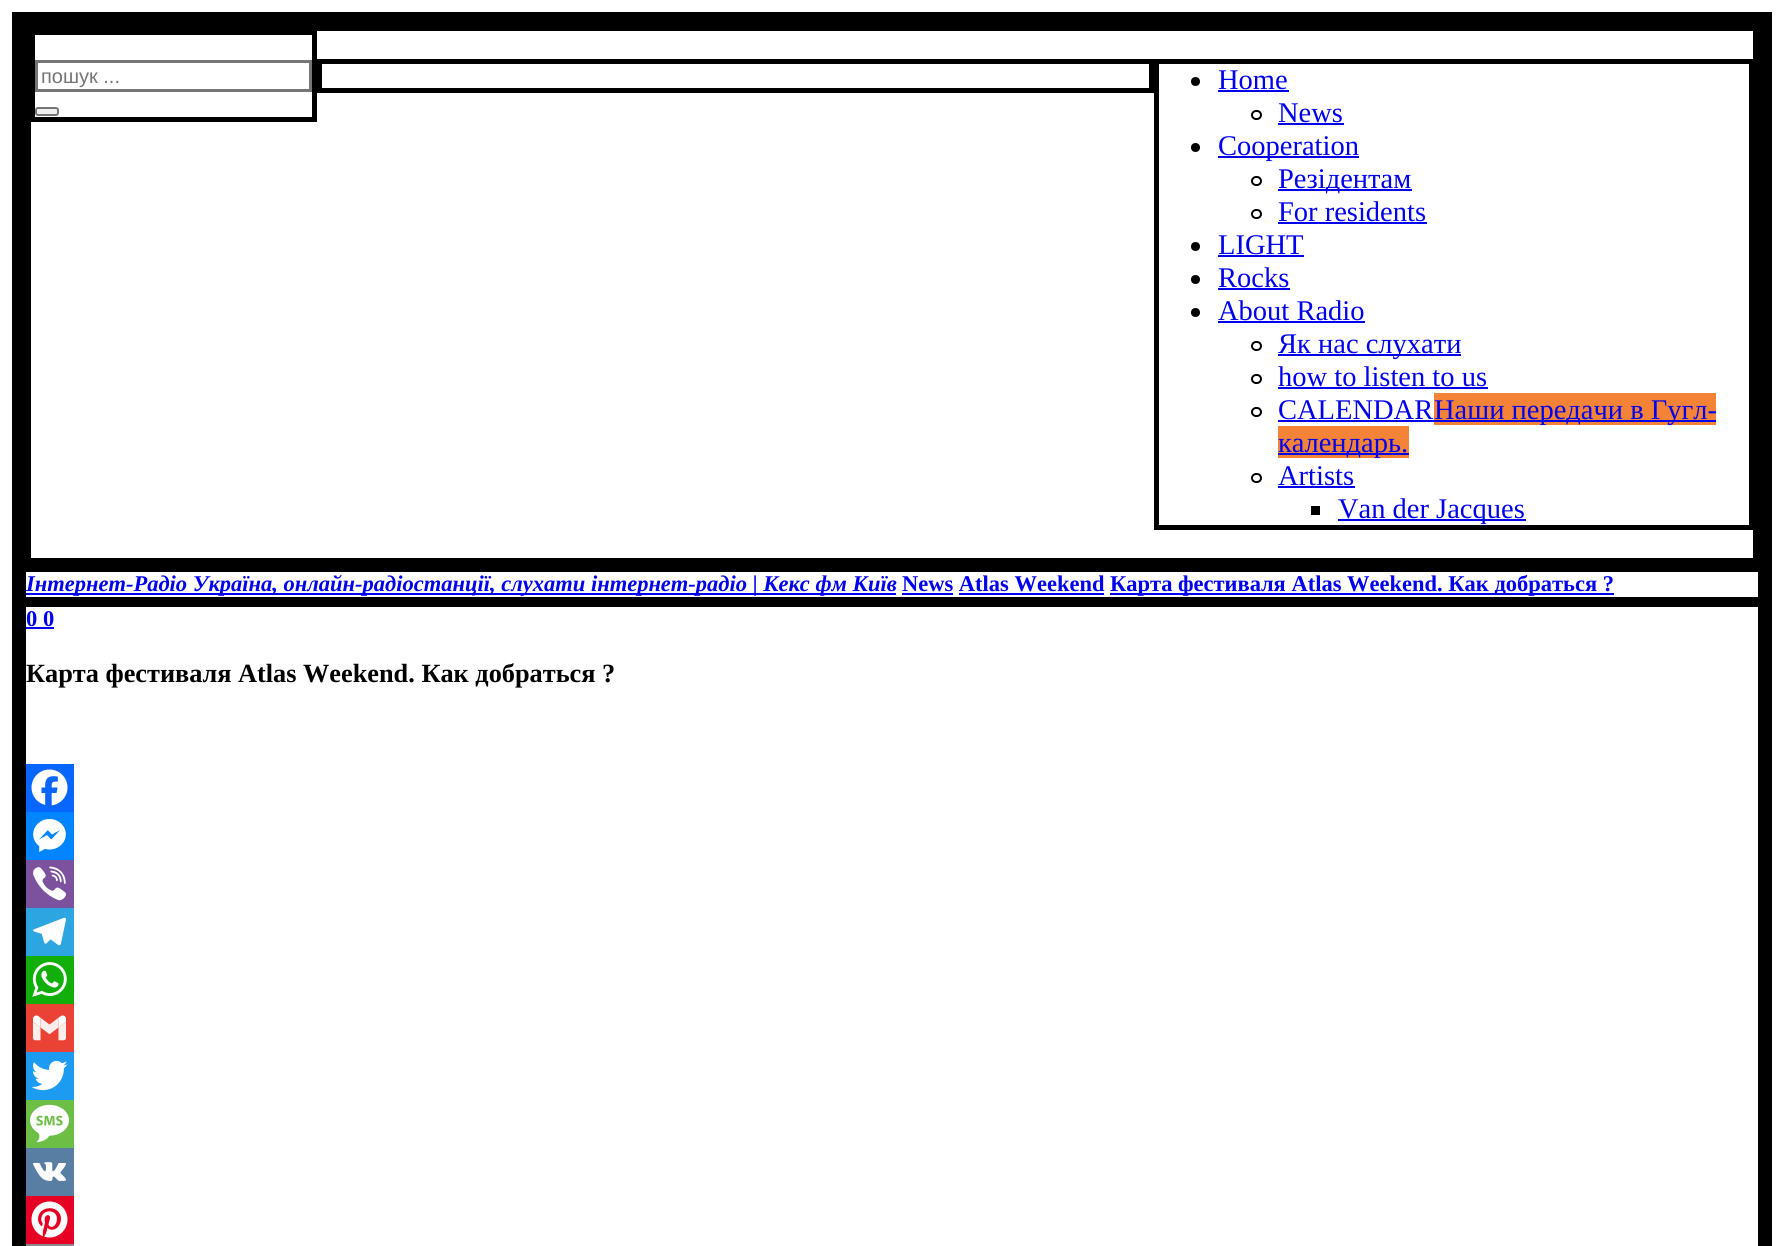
#include <cairo.h>
#include <math.h>
#include <stddef.h>

typedef struct { double x, y, w, h; unsigned color; } box_t;

static void ink(cairo_t *ctx, unsigned color) {
    cairo_set_source_rgb(ctx, (color >> 16) / 255.0, (color >> 8 & 255) / 255.0, (color & 255) / 255.0);
}

static void round_path(cairo_t *ctx, double x, double y, double w, double h, double r) {
    cairo_new_sub_path(ctx);
    cairo_arc(ctx, x + w - r, y + h - r, r, 0, M_PI / 2);
    cairo_arc(ctx, x + r, y + h - r, r, M_PI / 2, M_PI);
    cairo_arc(ctx, x + r, y + r, r, M_PI, 1.5 * M_PI);
    cairo_arc(ctx, x + w - r, y + r, r, 1.5 * M_PI, 2 * M_PI);
    cairo_close_path(ctx);
}

static void paste(cairo_t *ctx, const char *path, double x, double y, double w, double h) {
    cairo_surface_t *image = cairo_image_surface_create_from_png(path);
    cairo_save(ctx);
    cairo_set_source_surface(ctx, image, x, y);
    cairo_rectangle(ctx, x, y, w, h);
    cairo_fill(ctx);
    cairo_restore(ctx);
    cairo_surface_destroy(image);
}

int main(void) {
    cairo_surface_t *surface = cairo_image_surface_create(CAIRO_FORMAT_RGB24, 1783, 1246);
    cairo_t *ctx = cairo_create(surface);
    cairo_font_options_t *options = cairo_font_options_create();
    cairo_font_options_set_hint_metrics(options, CAIRO_HINT_METRICS_OFF);
    cairo_font_options_set_hint_style(options, CAIRO_HINT_STYLE_NONE);
    cairo_set_font_options(ctx, options);
    cairo_set_miter_limit(ctx, 4);
    ink(ctx, 0xFFFFFF);
    cairo_paint(ctx);
    cairo_rectangle(ctx, 14.5, 14.5, 1755, 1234);
    ink(ctx, 0x000000);
    cairo_set_line_width(ctx, 5);
    cairo_stroke(ctx);
    cairo_rectangle(ctx, 19.5, 19.5, 1745, 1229);
    cairo_stroke(ctx);
    cairo_rectangle(ctx, 23.5, 23.5, 1737, 541);
    cairo_stroke(ctx);
    cairo_rectangle(ctx, 28.5, 28.5, 1727, 532);
    cairo_stroke(ctx);
    cairo_rectangle(ctx, 32.5, 32.5, 282, 87);
    cairo_stroke(ctx);
    cairo_rectangle(ctx, 36.5, 61.5, 274, 29);
    ink(ctx, 0x767676);
    cairo_set_line_width(ctx, 3);
    cairo_stroke(ctx);
    cairo_select_font_face(ctx, "Liberation Sans", CAIRO_FONT_SLANT_NORMAL, CAIRO_FONT_WEIGHT_NORMAL);
    cairo_set_font_size(ctx, 20);
    ink(ctx, 0x757575);
    cairo_move_to(ctx, 41, 83);
    cairo_show_text(ctx, "пошук ...");
    ink(ctx, 0xEFEFEF);
    round_path(ctx, 36, 108, 22, 7, 2);
    cairo_fill_preserve(ctx);
    ink(ctx, 0x767676);
    cairo_set_line_width(ctx, 2);
    cairo_stroke(ctx);
    cairo_rectangle(ctx, 319.5, 61.5, 832, 29);
    ink(ctx, 0x000000);
    cairo_set_line_width(ctx, 5);
    cairo_stroke(ctx);
    cairo_rectangle(ctx, 1156.5, 61.5, 595, 466);
    cairo_stroke(ctx);
    cairo_arc(ctx, 1195.5, 81.5, 4.5, 0, 2 * M_PI);
    cairo_fill(ctx);
    cairo_select_font_face(ctx, "Liberation Serif", CAIRO_FONT_SLANT_NORMAL, CAIRO_FONT_WEIGHT_NORMAL);
    cairo_set_font_size(ctx, 28.5);
    ink(ctx, 0x0000EE);
    cairo_move_to(ctx, 1218, 89);
    cairo_show_text(ctx, "Home");
    cairo_rectangle(ctx, 1218, 90, 71, 2);
    cairo_fill(ctx);
    round_path(ctx, 1252, 111, 9, 8, 4);
    ink(ctx, 0x000000);
    cairo_set_line_width(ctx, 2);
    cairo_stroke(ctx);
    ink(ctx, 0x0000EE);
    cairo_move_to(ctx, 1278, 122);
    cairo_show_text(ctx, "News");
    cairo_rectangle(ctx, 1278, 123, 66, 2);
    cairo_fill(ctx);
    ink(ctx, 0x000000);
    cairo_arc(ctx, 1195.5, 147.5, 4.5, 0, 2 * M_PI);
    cairo_fill(ctx);
    ink(ctx, 0x0000EE);
    cairo_rectangle(ctx, 1218, 156, 141, 2);
    cairo_fill(ctx);
    cairo_move_to(ctx, 1218, 155);
    cairo_show_text(ctx, "Cooperation");
    round_path(ctx, 1252, 177, 9, 8, 4);
    ink(ctx, 0x000000);
    cairo_stroke(ctx);
    ink(ctx, 0x0000EE);
    cairo_rectangle(ctx, 1278, 189, 134, 2);
    cairo_fill(ctx);
    cairo_move_to(ctx, 1278, 188);
    cairo_show_text(ctx, "Резідентам");
    round_path(ctx, 1252, 210, 9, 8, 4);
    ink(ctx, 0x000000);
    cairo_stroke(ctx);
    ink(ctx, 0x0000EE);
    cairo_move_to(ctx, 1278, 221);
    cairo_show_text(ctx, "For residents");
    cairo_rectangle(ctx, 1278, 222, 149, 2);
    cairo_fill(ctx);
    ink(ctx, 0x000000);
    cairo_arc(ctx, 1195.5, 246.5, 4.5, 0, 2 * M_PI);
    cairo_fill(ctx);
    ink(ctx, 0x0000EE);
    cairo_move_to(ctx, 1218, 254);
    cairo_show_text(ctx, "LIGHT");
    cairo_rectangle(ctx, 1218, 255, 86, 2);
    cairo_fill(ctx);
    ink(ctx, 0x000000);
    cairo_arc(ctx, 1195.5, 279.5, 4.5, 0, 2 * M_PI);
    cairo_fill(ctx);
    ink(ctx, 0x0000EE);
    cairo_move_to(ctx, 1218, 287);
    cairo_show_text(ctx, "Rocks");
    cairo_rectangle(ctx, 1218, 288, 72, 2);
    cairo_fill(ctx);
    ink(ctx, 0x000000);
    cairo_arc(ctx, 1195.5, 312.5, 4.5, 0, 2 * M_PI);
    cairo_fill(ctx);
    ink(ctx, 0x0000EE);
    cairo_move_to(ctx, 1218, 320);
    cairo_show_text(ctx, "About Radio");
    cairo_rectangle(ctx, 1218, 321, 147, 2);
    cairo_fill(ctx);
    round_path(ctx, 1252, 342, 9, 8, 4);
    ink(ctx, 0x000000);
    cairo_stroke(ctx);
    ink(ctx, 0x0000EE);
    cairo_rectangle(ctx, 1278, 354, 183, 2);
    cairo_fill(ctx);
    cairo_move_to(ctx, 1278, 353);
    cairo_show_text(ctx, "Як нас слухати");
    round_path(ctx, 1252, 375, 9, 8, 4);
    ink(ctx, 0x000000);
    cairo_stroke(ctx);
    ink(ctx, 0x0000EE);
    cairo_move_to(ctx, 1278, 386);
    cairo_show_text(ctx, "how to listen to us");
    cairo_rectangle(ctx, 1278, 387, 210, 2);
    cairo_fill(ctx);
    round_path(ctx, 1252, 408, 9, 8, 4);
    ink(ctx, 0x000000);
    cairo_stroke(ctx);
    ink(ctx, 0x0000EE);
    cairo_move_to(ctx, 1278, 419);
    cairo_show_text(ctx, "CALENDAR");
    ink(ctx, 0xF48338);
    cairo_rectangle(ctx, 1434, 393, 282, 32);
    cairo_fill(ctx);
    ink(ctx, 0x0000EE);
    cairo_rectangle(ctx, 1434, 420, 282, 2);
    cairo_fill(ctx);
    cairo_move_to(ctx, 1434, 419);
    cairo_show_text(ctx, "Наши передачи в Гугл-");
    {
        static const box_t items[] = {
            {1278, 420, 156, 2, 0x0000EE},
            {1278, 426, 131, 32, 0xF48338},
            {1278, 453, 131, 2, 0x0000EE},
        };
        for (size_t i = 0; i < sizeof items / sizeof *items; i++) {
            ink(ctx, items[i].color);
            cairo_rectangle(ctx, items[i].x, items[i].y, items[i].w, items[i].h);
            cairo_fill(ctx);
        }
    }
    cairo_move_to(ctx, 1278, 452);
    cairo_show_text(ctx, "календарь.");
    round_path(ctx, 1252, 474, 9, 8, 4);
    ink(ctx, 0x000000);
    cairo_stroke(ctx);
    ink(ctx, 0x0000EE);
    cairo_move_to(ctx, 1278, 485);
    cairo_show_text(ctx, "Artists");
    {
        static const box_t items[] = {
            {1278, 486, 77, 2, 0x0000EE},
            {1311, 506, 9, 9, 0x000000},
            {1338, 519, 188, 2, 0x0000EE},
        };
        for (size_t i = 0; i < sizeof items / sizeof *items; i++) {
            ink(ctx, items[i].color);
            cairo_rectangle(ctx, items[i].x, items[i].y, items[i].w, items[i].h);
            cairo_fill(ctx);
        }
    }
    cairo_move_to(ctx, 1338, 518);
    cairo_show_text(ctx, "Van der Jacques");
    cairo_rectangle(ctx, 23.5, 569.5, 1737, 30);
    ink(ctx, 0x000000);
    cairo_set_line_width(ctx, 5);
    cairo_stroke(ctx);
    ink(ctx, 0x0000EE);
    cairo_rectangle(ctx, 26, 593, 870, 2);
    cairo_fill(ctx);
    cairo_select_font_face(ctx, "Liberation Serif", CAIRO_FONT_SLANT_ITALIC, CAIRO_FONT_WEIGHT_BOLD);
    cairo_set_font_size(ctx, 22.5);
    cairo_move_to(ctx, 26, 591);
    cairo_show_text(ctx, "Інтернет-Радіо Україна, онлайн-радіостанції, слухати інтернет-радіо | Кекс фм Київ");
    cairo_select_font_face(ctx, "Liberation Serif", CAIRO_FONT_SLANT_NORMAL, CAIRO_FONT_WEIGHT_BOLD);
    cairo_move_to(ctx, 902, 591);
    cairo_show_text(ctx, "News Atlas Weekend");
    cairo_rectangle(ctx, 902, 593, 51, 2);
    cairo_fill(ctx);
    cairo_rectangle(ctx, 1110, 593, 504, 2);
    cairo_fill(ctx);
    cairo_move_to(ctx, 1110, 591);
    cairo_show_text(ctx, "Карта фестиваля Atlas Weekend. Как добраться ?");
    cairo_rectangle(ctx, 959, 593, 145, 2);
    cairo_fill(ctx);
    cairo_rectangle(ctx, 23.5, 604.5, 1737, 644);
    ink(ctx, 0x000000);
    cairo_stroke(ctx);
    ink(ctx, 0x0000EE);
    cairo_move_to(ctx, 26, 626);
    cairo_show_text(ctx, "0 0");
    cairo_rectangle(ctx, 26, 627, 28, 2);
    cairo_fill(ctx);
    cairo_set_font_size(ctx, 26.3);
    ink(ctx, 0x000000);
    cairo_move_to(ctx, 26, 682);
    cairo_show_text(ctx, "Карта фестиваля Atlas Weekend. Как добраться ?");
    ink(ctx, 0x0866FF);
    cairo_rectangle(ctx, 26, 764, 48, 48);
    cairo_fill(ctx);
    paste(ctx, "media/1.png", 31, 769, 37, 37);
    ink(ctx, 0x0084FF);
    cairo_rectangle(ctx, 26, 812, 48, 48);
    cairo_fill(ctx);
    paste(ctx, "media/2.png", 33, 819, 33, 33);
    ink(ctx, 0x7C529E);
    cairo_rectangle(ctx, 26, 860, 48, 48);
    cairo_fill(ctx);
    paste(ctx, "media/3.png", 33, 866, 33, 35);
    ink(ctx, 0x2CA5E0);
    cairo_rectangle(ctx, 26, 908, 48, 48);
    cairo_fill(ctx);
    paste(ctx, "media/4.png", 33, 917, 33, 29);
    ink(ctx, 0x12AF0A);
    cairo_rectangle(ctx, 26, 956, 48, 48);
    cairo_fill(ctx);
    paste(ctx, "media/5.png", 32, 962, 35, 35);
    ink(ctx, 0xEA4335);
    cairo_rectangle(ctx, 26, 1004, 48, 48);
    cairo_fill(ctx);
    paste(ctx, "media/6.png", 33, 1015, 33, 26);
    ink(ctx, 0x1D9BF0);
    cairo_rectangle(ctx, 26, 1052, 48, 48);
    cairo_fill(ctx);
    paste(ctx, "media/7.png", 31, 1060, 37, 31);
    ink(ctx, 0x6CBE45);
    cairo_rectangle(ctx, 26, 1100, 48, 48);
    cairo_fill(ctx);
    paste(ctx, "media/8.png", 30, 1104, 39, 39);
    ink(ctx, 0x587EA3);
    cairo_rectangle(ctx, 26, 1148, 48, 48);
    cairo_fill(ctx);
    paste(ctx, "media/9.png", 33, 1162, 33, 19);
    ink(ctx, 0xE60023);
    cairo_rectangle(ctx, 26, 1196, 48, 48);
    cairo_fill(ctx);
    paste(ctx, "media/10.png", 31, 1201, 37, 37);
    ink(ctx, 0x888990);
    cairo_rectangle(ctx, 26, 1244, 48, 2);
    cairo_fill(ctx);
    cairo_surface_write_to_png(surface, "image.png");
    cairo_font_options_destroy(options);
    cairo_destroy(ctx);
    cairo_surface_destroy(surface);
    return 0;
}
